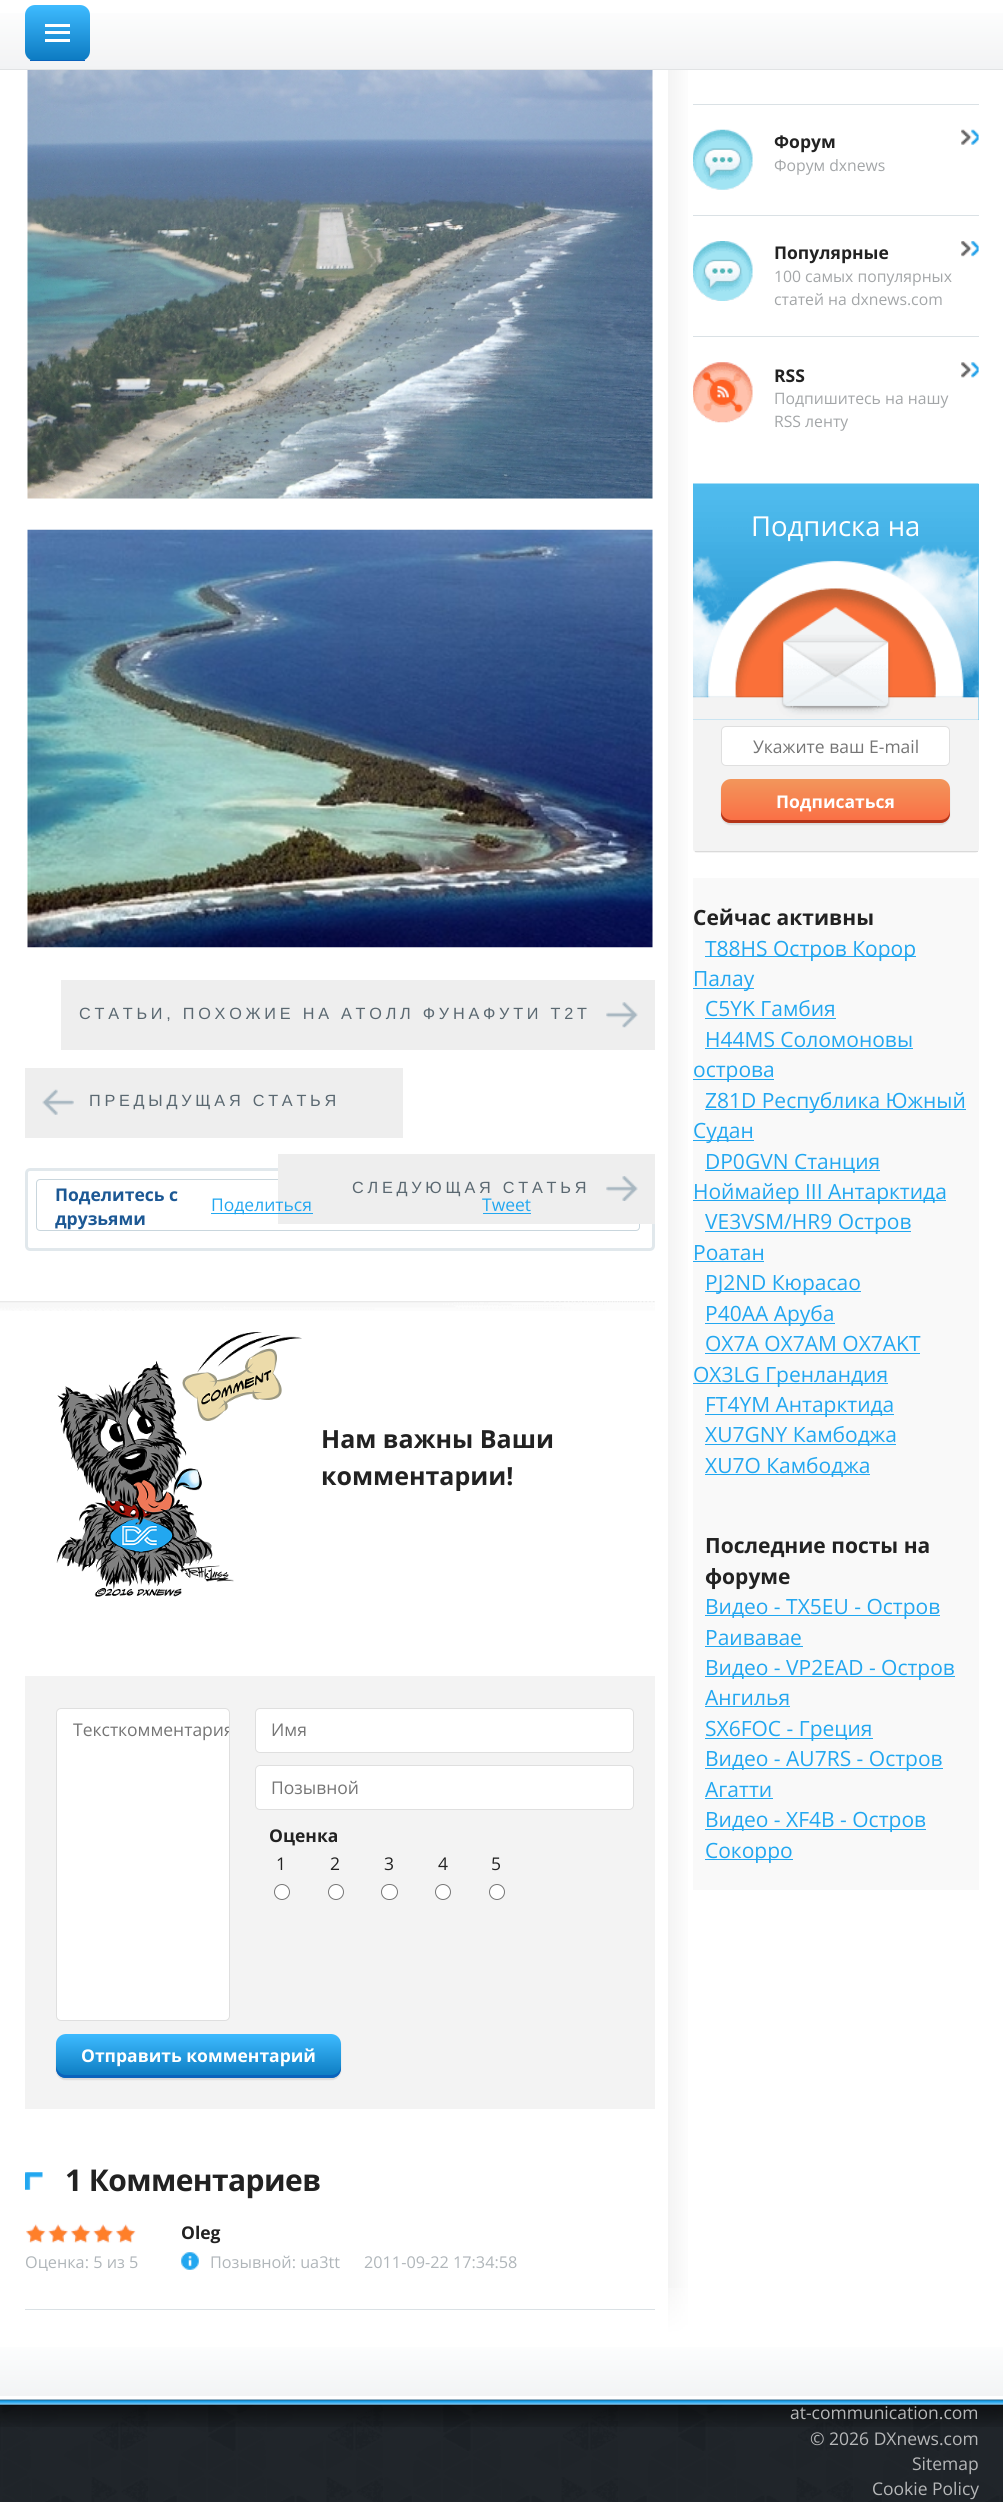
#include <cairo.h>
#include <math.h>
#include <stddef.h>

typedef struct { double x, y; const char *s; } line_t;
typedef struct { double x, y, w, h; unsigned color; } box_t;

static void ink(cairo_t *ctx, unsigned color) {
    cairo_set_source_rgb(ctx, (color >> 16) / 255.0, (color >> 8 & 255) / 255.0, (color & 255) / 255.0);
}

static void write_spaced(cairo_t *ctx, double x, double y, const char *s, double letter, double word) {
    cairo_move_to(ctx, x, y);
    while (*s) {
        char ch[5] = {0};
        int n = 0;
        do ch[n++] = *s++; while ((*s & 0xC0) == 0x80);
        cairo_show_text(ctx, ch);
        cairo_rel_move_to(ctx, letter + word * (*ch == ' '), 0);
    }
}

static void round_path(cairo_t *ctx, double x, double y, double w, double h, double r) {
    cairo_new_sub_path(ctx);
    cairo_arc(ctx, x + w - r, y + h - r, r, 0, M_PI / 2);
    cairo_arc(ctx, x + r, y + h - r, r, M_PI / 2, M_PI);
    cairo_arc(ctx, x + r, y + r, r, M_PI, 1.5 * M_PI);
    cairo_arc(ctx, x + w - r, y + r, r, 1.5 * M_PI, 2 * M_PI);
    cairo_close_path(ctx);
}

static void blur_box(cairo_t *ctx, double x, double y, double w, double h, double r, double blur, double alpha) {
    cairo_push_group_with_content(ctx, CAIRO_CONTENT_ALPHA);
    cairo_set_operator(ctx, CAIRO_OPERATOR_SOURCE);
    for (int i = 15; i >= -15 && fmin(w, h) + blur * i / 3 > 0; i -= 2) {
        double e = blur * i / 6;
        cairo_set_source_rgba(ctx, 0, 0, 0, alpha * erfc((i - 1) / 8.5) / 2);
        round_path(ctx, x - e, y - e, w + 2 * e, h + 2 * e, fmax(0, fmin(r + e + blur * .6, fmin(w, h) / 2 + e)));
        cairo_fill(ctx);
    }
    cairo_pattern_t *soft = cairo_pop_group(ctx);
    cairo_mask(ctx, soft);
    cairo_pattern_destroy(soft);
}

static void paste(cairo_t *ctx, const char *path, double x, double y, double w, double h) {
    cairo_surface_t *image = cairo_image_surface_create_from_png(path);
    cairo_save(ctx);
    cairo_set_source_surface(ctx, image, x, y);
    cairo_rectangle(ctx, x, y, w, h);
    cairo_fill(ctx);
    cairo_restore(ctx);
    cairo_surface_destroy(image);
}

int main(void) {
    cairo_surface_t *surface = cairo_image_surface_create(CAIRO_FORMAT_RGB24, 1003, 2502);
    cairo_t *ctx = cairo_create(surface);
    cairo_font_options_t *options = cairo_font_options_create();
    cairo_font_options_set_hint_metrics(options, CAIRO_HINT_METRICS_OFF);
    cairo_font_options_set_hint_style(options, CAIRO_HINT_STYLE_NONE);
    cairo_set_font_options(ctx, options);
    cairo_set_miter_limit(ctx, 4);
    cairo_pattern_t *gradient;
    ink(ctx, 0xFFFFFF);
    cairo_paint(ctx);
    gradient = cairo_pattern_create_linear(502, 0, 502, 69);
    cairo_pattern_add_color_stop_rgba(gradient, 0, 1, 1, 1, 1);
    cairo_pattern_add_color_stop_rgba(gradient, 1, 0.949, 0.953, 0.957, 1);
    cairo_set_source(ctx, gradient);
    cairo_pattern_destroy(gradient);
    cairo_rectangle(ctx, 0, 13, 1003, 56);
    cairo_fill(ctx);
    ink(ctx, 0xE1E3E4);
    cairo_rectangle(ctx, 0, 69, 1003, 1);
    cairo_fill(ctx);
    cairo_save(ctx);
    round_path(ctx, 25, 5, 65, 56, 10);
    cairo_clip(ctx);
    gradient = cairo_pattern_create_linear(58, 5, 58, 60);
    cairo_pattern_add_color_stop_rgba(gradient, 0, 0.243, 0.733, 1, 1);
    cairo_pattern_add_color_stop_rgba(gradient, 1, 0.051, 0.482, 0.761, 1);
    cairo_set_source(ctx, gradient);
    cairo_pattern_destroy(gradient);
    cairo_new_path(ctx);
    cairo_move_to(ctx, 35, 5);
    cairo_line_to(ctx, 80, 5);
    cairo_curve_to(ctx, 85.5, 5, 90, 9.5, 90, 15);
    cairo_line_to(ctx, 90, 60);
    cairo_line_to(ctx, 25, 60);
    cairo_line_to(ctx, 25, 15);
    cairo_curve_to(ctx, 25, 9.5, 29.5, 5, 35, 5);
    cairo_close_path(ctx);
    cairo_fill(ctx);
    cairo_restore(ctx);
    {
        static const box_t items[] = {
            {30, 60, 55, 1, 0x0A63BC},
            {45, 31, 25, 3, 0xFFFFFF},
            {45, 24, 25, 3, 0xFFFFFF},
            {45, 39, 25, 3, 0xFFFFFF},
        };
        for (size_t i = 0; i < sizeof items / sizeof *items; i++) {
            ink(ctx, items[i].color);
            cairo_rectangle(ctx, items[i].x, items[i].y, items[i].w, items[i].h);
            cairo_fill(ctx);
        }
    }
    gradient = cairo_pattern_create_linear(667, 972, 693, 972);
    cairo_pattern_add_color_stop_rgba(gradient, 0, 0.953, 0.953, 0.953, 1);
    cairo_pattern_add_color_stop_rgba(gradient, 1, 1, 1, 1, 1);
    cairo_set_source(ctx, gradient);
    cairo_pattern_destroy(gradient);
    cairo_rectangle(ctx, 668, 70, 20, 2265);
    cairo_fill(ctx);
    gradient = cairo_pattern_create_linear(680, 2335, 680, 2273);
    cairo_pattern_add_color_stop_rgba(gradient, 0, 1, 1, 1, 1);
    cairo_pattern_add_color_stop_rgba(gradient, 1, 1, 1, 1, 0);
    cairo_set_source(ctx, gradient);
    cairo_pattern_destroy(gradient);
    cairo_rectangle(ctx, 668, 2288, 20, 47);
    cairo_fill(ctx);
    paste(ctx, "media/1.png", 27, 70, 626, 429);
    paste(ctx, "media/2.png", 27, 529, 626, 419);
    ink(ctx, 0xEEEEEE);
    cairo_rectangle(ctx, 61, 980, 594, 70);
    cairo_fill(ctx);
    cairo_select_font_face(ctx, "Liberation Sans", CAIRO_FONT_SLANT_NORMAL, CAIRO_FONT_WEIGHT_NORMAL);
    cairo_set_font_size(ctx, 16.25);
    ink(ctx, 0x5A6871);
    write_spaced(ctx, 79, 1019, "CТАТЬИ, ПОХОЖИЕ НА АТОЛЛ ФУНАФУТИ T2T", 3.75, 0);
    paste(ctx, "media/3.png", 606, 1002, 32, 26);
    ink(ctx, 0xEEEEEE);
    cairo_rectangle(ctx, 25, 1068, 378, 70);
    cairo_fill(ctx);
    paste(ctx, "media/4.png", 42, 1089, 32, 26);
    ink(ctx, 0x5A6871);
    write_spaced(ctx, 89, 1106, "ПРЕДЫДУЩАЯ СТАТЬЯ", 3.75, 0);
    round_path(ctx, 26.5, 1169.5, 627, 80, 3.5);
    ink(ctx, 0xE1E8EC);
    cairo_set_line_width(ctx, 3);
    cairo_stroke(ctx);
    round_path(ctx, 36.5, 1179.5, 603, 51, 3.5);
    ink(ctx, 0xC9D6DD);
    cairo_set_line_width(ctx, 1);
    cairo_stroke(ctx);
    ink(ctx, 0xEEEEEE);
    cairo_rectangle(ctx, 278, 1154, 377, 70);
    cairo_fill(ctx);
    ink(ctx, 0x5A6871);
    write_spaced(ctx, 352, 1193, "СЛЕДУЮЩАЯ СТАТЬЯ", 3.75, 0);
    paste(ctx, "media/5.png", 606, 1176, 32, 25);
    cairo_select_font_face(ctx, "Open Sans", CAIRO_FONT_SLANT_NORMAL, CAIRO_FONT_WEIGHT_BOLD);
    cairo_set_font_size(ctx, 17.5);
    ink(ctx, 0x1C5894);
    cairo_move_to(ctx, 55, 1201);
    cairo_show_text(ctx, "Поделитесь с");
    cairo_move_to(ctx, 55, 1225);
    cairo_show_text(ctx, "друзьями");
    ink(ctx, 0x22A7F0);
    cairo_rectangle(ctx, 211, 1213, 102, 1);
    cairo_fill(ctx);
    cairo_select_font_face(ctx, "Open Sans", CAIRO_FONT_SLANT_NORMAL, CAIRO_FONT_WEIGHT_NORMAL);
    cairo_move_to(ctx, 211, 1211);
    cairo_show_text(ctx, "Поделиться");
    cairo_move_to(ctx, 482, 1211);
    cairo_show_text(ctx, "Tweet");
    cairo_rectangle(ctx, 483, 1213, 48, 1);
    cairo_fill(ctx);
    paste(ctx, "media/6.png", 0, 1301, 655, 10);
    paste(ctx, "media/7.png", 56, 1331, 246, 266);
    cairo_select_font_face(ctx, "Open Sans", CAIRO_FONT_SLANT_NORMAL, CAIRO_FONT_WEIGHT_BOLD);
    cairo_set_font_size(ctx, 25);
    ink(ctx, 0x222222);
    cairo_move_to(ctx, 321, 1448);
    cairo_show_text(ctx, "Нам важны Ваши");
    cairo_move_to(ctx, 321, 1485);
    cairo_show_text(ctx, "комментарии!");
    ink(ctx, 0xF3F3F3);
    cairo_rectangle(ctx, 25, 1676, 630, 433);
    cairo_fill(ctx);
    ink(ctx, 0xFFFFFF);
    round_path(ctx, 56.5, 1708.5, 173, 312, 4.5);
    cairo_fill_preserve(ctx);
    ink(ctx, 0xDFDFDF);
    cairo_stroke(ctx);
    cairo_select_font_face(ctx, "Open Sans", CAIRO_FONT_SLANT_NORMAL, CAIRO_FONT_WEIGHT_NORMAL);
    cairo_set_font_size(ctx, 17.5);
    ink(ctx, 0x757575);
    cairo_move_to(ctx, 73, 1736);
    cairo_show_text(ctx, "Текст");
    cairo_save(ctx);
    round_path(ctx, 58, 1709, 171, 311, 4);
    cairo_clip(ctx);
    cairo_move_to(ctx, 118, 1736);
    cairo_show_text(ctx, "комментария");
    cairo_restore(ctx);
    ink(ctx, 0xFFFFFF);
    round_path(ctx, 255.5, 1708.5, 378, 44, 4.5);
    cairo_fill_preserve(ctx);
    ink(ctx, 0xDFDFDF);
    cairo_stroke(ctx);
    ink(ctx, 0x757575);
    cairo_move_to(ctx, 271, 1736);
    cairo_show_text(ctx, "Имя");
    ink(ctx, 0xFFFFFF);
    round_path(ctx, 255.5, 1765.5, 378, 44, 4.5);
    cairo_fill_preserve(ctx);
    ink(ctx, 0xDFDFDF);
    cairo_stroke(ctx);
    ink(ctx, 0x757575);
    cairo_move_to(ctx, 271, 1794);
    cairo_show_text(ctx, "Позывной");
    cairo_select_font_face(ctx, "Open Sans", CAIRO_FONT_SLANT_NORMAL, CAIRO_FONT_WEIGHT_BOLD);
    ink(ctx, 0x222222);
    cairo_move_to(ctx, 269, 1842);
    cairo_show_text(ctx, "Оценка");
    cairo_select_font_face(ctx, "Open Sans", CAIRO_FONT_SLANT_NORMAL, CAIRO_FONT_WEIGHT_NORMAL);
    {
        static const line_t items[] = {
            {276, 1870, "1"},
            {330, 1870, "2"},
            {384, 1870, "3"},
            {438, 1870, "4"},
            {491, 1870, "5"},
        };
        for (size_t i = 0; i < sizeof items / sizeof *items; i++) {
            cairo_move_to(ctx, items[i].x, items[i].y);
            cairo_show_text(ctx, items[i].s);
        }
    }
    ink(ctx, 0xFFFFFF);
    cairo_new_path(ctx);
    cairo_arc(ctx, 282, 1892, 7.5, 0, 2 * M_PI);
    cairo_fill_preserve(ctx);
    ink(ctx, 0x767676);
    cairo_stroke(ctx);
    ink(ctx, 0xFFFFFF);
    cairo_arc(ctx, 336, 1892, 7.5, 0, 2 * M_PI);
    cairo_fill_preserve(ctx);
    ink(ctx, 0x767676);
    cairo_stroke(ctx);
    ink(ctx, 0xFFFFFF);
    round_path(ctx, 381.5, 1884.5, 16, 15, 7.5);
    cairo_fill_preserve(ctx);
    ink(ctx, 0x767676);
    cairo_stroke(ctx);
    ink(ctx, 0xFFFFFF);
    cairo_arc(ctx, 443, 1892, 7.5, 0, 2 * M_PI);
    cairo_fill_preserve(ctx);
    ink(ctx, 0x767676);
    cairo_stroke(ctx);
    ink(ctx, 0xFFFFFF);
    cairo_arc(ctx, 497, 1892, 7.5, 0, 2 * M_PI);
    cairo_fill_preserve(ctx);
    ink(ctx, 0x767676);
    cairo_stroke(ctx);
    ink(ctx, 0x000000);
    blur_box(ctx, 56, 2036, 285, 44, 10, 0.5, 0.1);
    gradient = cairo_pattern_create_linear(199, 2034, 199, 2078);
    cairo_pattern_add_color_stop_rgba(gradient, 0, 0.243, 0.733, 1, 1);
    cairo_pattern_add_color_stop_rgba(gradient, 1, 0.043, 0.478, 0.749, 1);
    cairo_set_source(ctx, gradient);
    cairo_pattern_destroy(gradient);
    round_path(ctx, 56, 2034, 285, 44, 10);
    cairo_fill(ctx);
    ink(ctx, 0x0A63BC);
    cairo_new_path(ctx);
    cairo_move_to(ctx, 56, 2065);
    cairo_line_to(ctx, 56, 2068);
    cairo_curve_to(ctx, 56, 2074, 60, 2078, 66, 2078);
    cairo_line_to(ctx, 331, 2078);
    cairo_curve_to(ctx, 337, 2078, 341, 2074, 341, 2068);
    cairo_line_to(ctx, 341, 2065);
    cairo_curve_to(ctx, 341, 2071, 337, 2075, 331, 2075);
    cairo_line_to(ctx, 66, 2075);
    cairo_curve_to(ctx, 61, 2075, 56, 2071, 56, 2065);
    cairo_close_path(ctx);
    cairo_fill(ctx);
    cairo_select_font_face(ctx, "Open Sans", CAIRO_FONT_SLANT_NORMAL, CAIRO_FONT_WEIGHT_BOLD);
    ink(ctx, 0xFFFFFF);
    cairo_move_to(ctx, 81, 2062);
    cairo_show_text(ctx, "Отправить комментарий");
    paste(ctx, "media/8.png", 25, 2172, 18, 18);
    cairo_set_font_size(ctx, 30);
    ink(ctx, 0x222222);
    write_spaced(ctx, 65, 2191, "1 Комментариев", -0.6, 0);
    ink(ctx, 0xDAE1E5);
    cairo_rectangle(ctx, 25, 2309, 630, 1);
    cairo_fill(ctx);
    paste(ctx, "media/9.png", 26, 2224, 110, 19);
    cairo_select_font_face(ctx, "Open Sans", CAIRO_FONT_SLANT_NORMAL, CAIRO_FONT_WEIGHT_NORMAL);
    cairo_set_font_size(ctx, 16.25);
    ink(ctx, 0xB0B6BA);
    cairo_move_to(ctx, 25, 2268);
    cairo_show_text(ctx, "Оценка: 5 из 5");
    cairo_select_font_face(ctx, "Open Sans", CAIRO_FONT_SLANT_NORMAL, CAIRO_FONT_WEIGHT_BOLD);
    cairo_set_font_size(ctx, 17.5);
    ink(ctx, 0x222222);
    cairo_move_to(ctx, 181, 2239);
    cairo_show_text(ctx, "Oleg");
    paste(ctx, "media/10.png", 181, 2252, 18, 18);
    cairo_select_font_face(ctx, "Open Sans", CAIRO_FONT_SLANT_NORMAL, CAIRO_FONT_WEIGHT_NORMAL);
    cairo_set_font_size(ctx, 16.25);
    ink(ctx, 0xB0B6BA);
    cairo_move_to(ctx, 210, 2268);
    cairo_show_text(ctx, "Позывной: ua3tt");
    cairo_move_to(ctx, 364, 2268);
    cairo_show_text(ctx, "2011-09-22 17:34:58");
    ink(ctx, 0xDAE1E5);
    cairo_rectangle(ctx, 693, 104, 286, 1);
    cairo_fill(ctx);
    paste(ctx, "media/11.png", 693, 129, 60, 61);
    cairo_select_font_face(ctx, "Open Sans", CAIRO_FONT_SLANT_NORMAL, CAIRO_FONT_WEIGHT_BOLD);
    cairo_set_font_size(ctx, 17.5);
    ink(ctx, 0x222222);
    cairo_move_to(ctx, 774, 148);
    cairo_show_text(ctx, "Форум");
    paste(ctx, "media/12.png", 961, 129, 18, 16);
    cairo_select_font_face(ctx, "Open Sans", CAIRO_FONT_SLANT_NORMAL, CAIRO_FONT_WEIGHT_NORMAL);
    cairo_set_font_size(ctx, 15.75);
    ink(ctx, 0xA3A6A8);
    cairo_move_to(ctx, 774, 171);
    cairo_show_text(ctx, "Форум dxnews");
    ink(ctx, 0xDAE1E5);
    cairo_rectangle(ctx, 693, 215, 286, 1);
    cairo_fill(ctx);
    paste(ctx, "media/13.png", 693, 241, 60, 60);
    cairo_select_font_face(ctx, "Open Sans", CAIRO_FONT_SLANT_NORMAL, CAIRO_FONT_WEIGHT_BOLD);
    cairo_set_font_size(ctx, 17.5);
    ink(ctx, 0x222222);
    cairo_move_to(ctx, 774, 259);
    cairo_show_text(ctx, "Популярные");
    paste(ctx, "media/14.png", 961, 241, 18, 16);
    cairo_select_font_face(ctx, "Open Sans", CAIRO_FONT_SLANT_NORMAL, CAIRO_FONT_WEIGHT_NORMAL);
    cairo_set_font_size(ctx, 15.75);
    ink(ctx, 0xA3A6A8);
    cairo_move_to(ctx, 774, 282);
    cairo_show_text(ctx, "100 самых популярных");
    cairo_move_to(ctx, 774, 305);
    cairo_show_text(ctx, "статей на dxnews.com");
    ink(ctx, 0xDAE1E5);
    cairo_rectangle(ctx, 693, 336, 286, 1);
    cairo_fill(ctx);
    paste(ctx, "media/15.png", 693, 362, 60, 61);
    cairo_select_font_face(ctx, "Open Sans", CAIRO_FONT_SLANT_NORMAL, CAIRO_FONT_WEIGHT_BOLD);
    cairo_set_font_size(ctx, 17.5);
    ink(ctx, 0x222222);
    cairo_move_to(ctx, 774, 382);
    cairo_show_text(ctx, "RSS");
    paste(ctx, "media/16.png", 961, 362, 18, 16);
    cairo_select_font_face(ctx, "Open Sans", CAIRO_FONT_SLANT_NORMAL, CAIRO_FONT_WEIGHT_NORMAL);
    cairo_set_font_size(ctx, 15.75);
    ink(ctx, 0xA3A6A8);
    cairo_move_to(ctx, 774, 404);
    cairo_show_text(ctx, "Подпишитесь на нашу");
    cairo_move_to(ctx, 774, 427);
    cairo_show_text(ctx, "RSS ленту");
    ink(ctx, 0x4BB7EA);
    cairo_rectangle(ctx, 693, 484, 286, 236);
    cairo_fill(ctx);
    paste(ctx, "media/17.png", 693, 483, 286, 237);
    cairo_set_font_size(ctx, 27.5);
    ink(ctx, 0xFFFFFF);
    cairo_move_to(ctx, 751, 536);
    cairo_show_text(ctx, "Подписка на");
    ink(ctx, 0xF3F3F3);
    cairo_new_path(ctx);
    cairo_move_to(ctx, 693, 720);
    cairo_line_to(ctx, 979, 720);
    cairo_line_to(ctx, 979, 849);
    cairo_curve_to(ctx, 979, 851, 977, 853, 975, 853);
    cairo_line_to(ctx, 697, 853);
    cairo_curve_to(ctx, 695, 853, 693, 851, 693, 849);
    cairo_close_path(ctx);
    cairo_fill(ctx);
    ink(ctx, 0xDADADA);
    cairo_rectangle(ctx, 695, 851, 283, 1);
    cairo_fill(ctx);
    ink(ctx, 0xFFFFFF);
    round_path(ctx, 721.5, 726.5, 228, 39, 4.5);
    cairo_fill_preserve(ctx);
    ink(ctx, 0xDFDFDF);
    cairo_stroke(ctx);
    cairo_set_font_size(ctx, 17.5);
    ink(ctx, 0x757575);
    cairo_move_to(ctx, 753, 753);
    cairo_show_text(ctx, "Укажите ваш E-mail");
    ink(ctx, 0x000000);
    blur_box(ctx, 721, 781, 229, 44, 10, 0.5, 0.1);
    gradient = cairo_pattern_create_linear(836, 779, 836, 823);
    cairo_pattern_add_color_stop_rgba(gradient, 0, 0.949, 0.588, 0.357, 1);
    cairo_pattern_add_color_stop_rgba(gradient, 1, 0.984, 0.427, 0.267, 1);
    cairo_set_source(ctx, gradient);
    cairo_pattern_destroy(gradient);
    round_path(ctx, 721, 779, 229, 44, 10);
    cairo_fill(ctx);
    ink(ctx, 0xB43418);
    cairo_new_path(ctx);
    cairo_move_to(ctx, 721, 810);
    cairo_line_to(ctx, 721, 813);
    cairo_curve_to(ctx, 721, 819, 725, 823, 731, 823);
    cairo_line_to(ctx, 940, 823);
    cairo_curve_to(ctx, 946, 823, 950, 819, 950, 813);
    cairo_line_to(ctx, 950, 810);
    cairo_curve_to(ctx, 950, 816, 946, 820, 940, 820);
    cairo_line_to(ctx, 731, 820);
    cairo_curve_to(ctx, 726, 820, 721, 816, 721, 810);
    cairo_close_path(ctx);
    cairo_fill(ctx);
    cairo_select_font_face(ctx, "Open Sans", CAIRO_FONT_SLANT_NORMAL, CAIRO_FONT_WEIGHT_BOLD);
    ink(ctx, 0xFFFFFF);
    cairo_move_to(ctx, 776, 808);
    cairo_show_text(ctx, "Подписаться");
    ink(ctx, 0xF9F9F9);
    cairo_rectangle(ctx, 693, 878, 286, 1012);
    cairo_fill(ctx);
    cairo_set_font_size(ctx, 21);
    ink(ctx, 0x222222);
    cairo_move_to(ctx, 693, 925);
    cairo_show_text(ctx, "Сейчас активны");
    ink(ctx, 0x22A7F0);
    cairo_rectangle(ctx, 705, 956, 211, 1);
    cairo_fill(ctx);
    cairo_select_font_face(ctx, "Open Sans", CAIRO_FONT_SLANT_NORMAL, CAIRO_FONT_WEIGHT_NORMAL);
    cairo_move_to(ctx, 705, 956);
    cairo_show_text(ctx, "T88HS Остров Корор");
    cairo_rectangle(ctx, 693, 988, 61, 1);
    cairo_fill(ctx);
    cairo_move_to(ctx, 693, 986);
    cairo_show_text(ctx, "Палау");
    cairo_move_to(ctx, 705, 1016);
    cairo_show_text(ctx, "C5YK Гамбия");
    cairo_rectangle(ctx, 705, 1018, 131, 1);
    cairo_fill(ctx);
    cairo_move_to(ctx, 705, 1047);
    cairo_show_text(ctx, "H44MS Соломоновы");
    cairo_rectangle(ctx, 705, 1048, 208, 1);
    cairo_fill(ctx);
    cairo_rectangle(ctx, 693, 1079, 81, 1);
    cairo_fill(ctx);
    cairo_move_to(ctx, 693, 1077);
    cairo_show_text(ctx, "острова");
    cairo_rectangle(ctx, 705, 1109, 261, 1);
    cairo_fill(ctx);
    cairo_move_to(ctx, 705, 1108);
    cairo_show_text(ctx, "Z81D Республика Южный");
    cairo_rectangle(ctx, 693, 1140, 61, 1);
    cairo_fill(ctx);
    cairo_move_to(ctx, 693, 1138);
    cairo_show_text(ctx, "Судан");
    cairo_rectangle(ctx, 705, 1170, 175, 1);
    cairo_fill(ctx);
    cairo_move_to(ctx, 705, 1169);
    cairo_show_text(ctx, "DP0GVN Станция");
    cairo_rectangle(ctx, 693, 1200, 253, 1);
    cairo_fill(ctx);
    cairo_move_to(ctx, 693, 1199);
    cairo_show_text(ctx, "Ноймайер III Антарктида");
    cairo_rectangle(ctx, 705, 1231, 206, 1);
    cairo_fill(ctx);
    cairo_move_to(ctx, 705, 1229);
    cairo_show_text(ctx, "VE3VSM/HR9 Остров");
    cairo_move_to(ctx, 693, 1260);
    cairo_show_text(ctx, "Роатан");
    cairo_rectangle(ctx, 693, 1261, 71, 1);
    cairo_fill(ctx);
    cairo_rectangle(ctx, 705, 1291, 156, 1);
    cairo_fill(ctx);
    cairo_move_to(ctx, 705, 1290);
    cairo_show_text(ctx, "PJ2ND Кюрасао");
    cairo_rectangle(ctx, 705, 1323, 130, 1);
    cairo_fill(ctx);
    cairo_move_to(ctx, 705, 1321);
    cairo_show_text(ctx, "P40AA Аруба");
    cairo_move_to(ctx, 705, 1351);
    cairo_show_text(ctx, "OX7A OX7AM OX7AKT");
    cairo_rectangle(ctx, 705, 1353, 215, 1);
    cairo_fill(ctx);
    cairo_rectangle(ctx, 693, 1383, 195, 1);
    cairo_fill(ctx);
    cairo_move_to(ctx, 693, 1382);
    cairo_show_text(ctx, "OX3LG Гренландия");
    cairo_rectangle(ctx, 705, 1414, 189, 1);
    cairo_fill(ctx);
    cairo_move_to(ctx, 705, 1412);
    cairo_show_text(ctx, "FT4YM Антарктида");
    cairo_rectangle(ctx, 705, 1444, 191, 1);
    cairo_fill(ctx);
    cairo_move_to(ctx, 705, 1442);
    cairo_show_text(ctx, "XU7GNY Камбоджа");
    cairo_rectangle(ctx, 705, 1474, 165, 1);
    cairo_fill(ctx);
    cairo_move_to(ctx, 705, 1473);
    cairo_show_text(ctx, "XU7O Камбоджа");
    cairo_select_font_face(ctx, "Open Sans", CAIRO_FONT_SLANT_NORMAL, CAIRO_FONT_WEIGHT_BOLD);
    ink(ctx, 0x222222);
    cairo_move_to(ctx, 705, 1553);
    cairo_show_text(ctx, "Последние посты на");
    cairo_move_to(ctx, 705, 1584);
    cairo_show_text(ctx, "форуме");
    ink(ctx, 0x22A7F0);
    cairo_rectangle(ctx, 705, 1615, 235, 1);
    cairo_fill(ctx);
    cairo_select_font_face(ctx, "Open Sans", CAIRO_FONT_SLANT_NORMAL, CAIRO_FONT_WEIGHT_NORMAL);
    cairo_move_to(ctx, 705, 1614);
    cairo_show_text(ctx, "Видео - TX5EU - Остров");
    cairo_move_to(ctx, 705, 1645);
    cairo_show_text(ctx, "Раивавае");
    cairo_rectangle(ctx, 705, 1646, 98, 1);
    cairo_fill(ctx);
    cairo_rectangle(ctx, 705, 1676, 250, 1);
    cairo_fill(ctx);
    cairo_move_to(ctx, 705, 1675);
    cairo_show_text(ctx, "Видео - VP2EAD - Остров");
    cairo_move_to(ctx, 705, 1705);
    cairo_show_text(ctx, "Ангилья");
    cairo_rectangle(ctx, 705, 1706, 85, 1);
    cairo_fill(ctx);
    cairo_rectangle(ctx, 705, 1738, 168, 1);
    cairo_fill(ctx);
    cairo_move_to(ctx, 705, 1736);
    cairo_show_text(ctx, "SX6FOC - Греция");
    cairo_rectangle(ctx, 705, 1768, 238, 1);
    cairo_fill(ctx);
    cairo_move_to(ctx, 705, 1766);
    cairo_show_text(ctx, "Видео - AU7RS - Остров");
    cairo_move_to(ctx, 705, 1797);
    cairo_show_text(ctx, "Агатти");
    cairo_rectangle(ctx, 705, 1798, 68, 1);
    cairo_fill(ctx);
    cairo_rectangle(ctx, 705, 1829, 221, 1);
    cairo_fill(ctx);
    cairo_move_to(ctx, 705, 1827);
    cairo_show_text(ctx, "Видео - XF4B - Остров");
    cairo_rectangle(ctx, 705, 1859, 88, 1);
    cairo_fill(ctx);
    cairo_move_to(ctx, 705, 1858);
    cairo_show_text(ctx, "Сокорро");
    gradient = cairo_pattern_create_linear(502, 2396, 502, 2335);
    cairo_pattern_add_color_stop_rgba(gradient, 0, 0.949, 0.957, 0.961, 1);
    cairo_pattern_add_color_stop_rgba(gradient, 1, 1, 1, 1, 1);
    cairo_set_source(ctx, gradient);
    cairo_pattern_destroy(gradient);
    cairo_rectangle(ctx, 0, 2347, 1003, 49);
    cairo_fill(ctx);
    paste(ctx, "media/18.png", 0, 2399, 1003, 103);
    paste(ctx, "media/19.png", 0, 2399, 1003, 28);
    cairo_set_font_size(ctx, 17.5);
    ink(ctx, 0xB6B7B8);
    {
        static const line_t items[] = {
            {790, 2419, "at-communication.com"},
            {810, 2445, "© 2026 DXnews.com"},
            {912, 2470, "Sitemap"},
            {872, 2495, "Cookie Policy"},
        };
        for (size_t i = 0; i < sizeof items / sizeof *items; i++) {
            cairo_move_to(ctx, items[i].x, items[i].y);
            cairo_show_text(ctx, items[i].s);
        }
    }
    cairo_surface_write_to_png(surface, "image.png");
    cairo_font_options_destroy(options);
    cairo_destroy(ctx);
    cairo_surface_destroy(surface);
    return 0;
}
